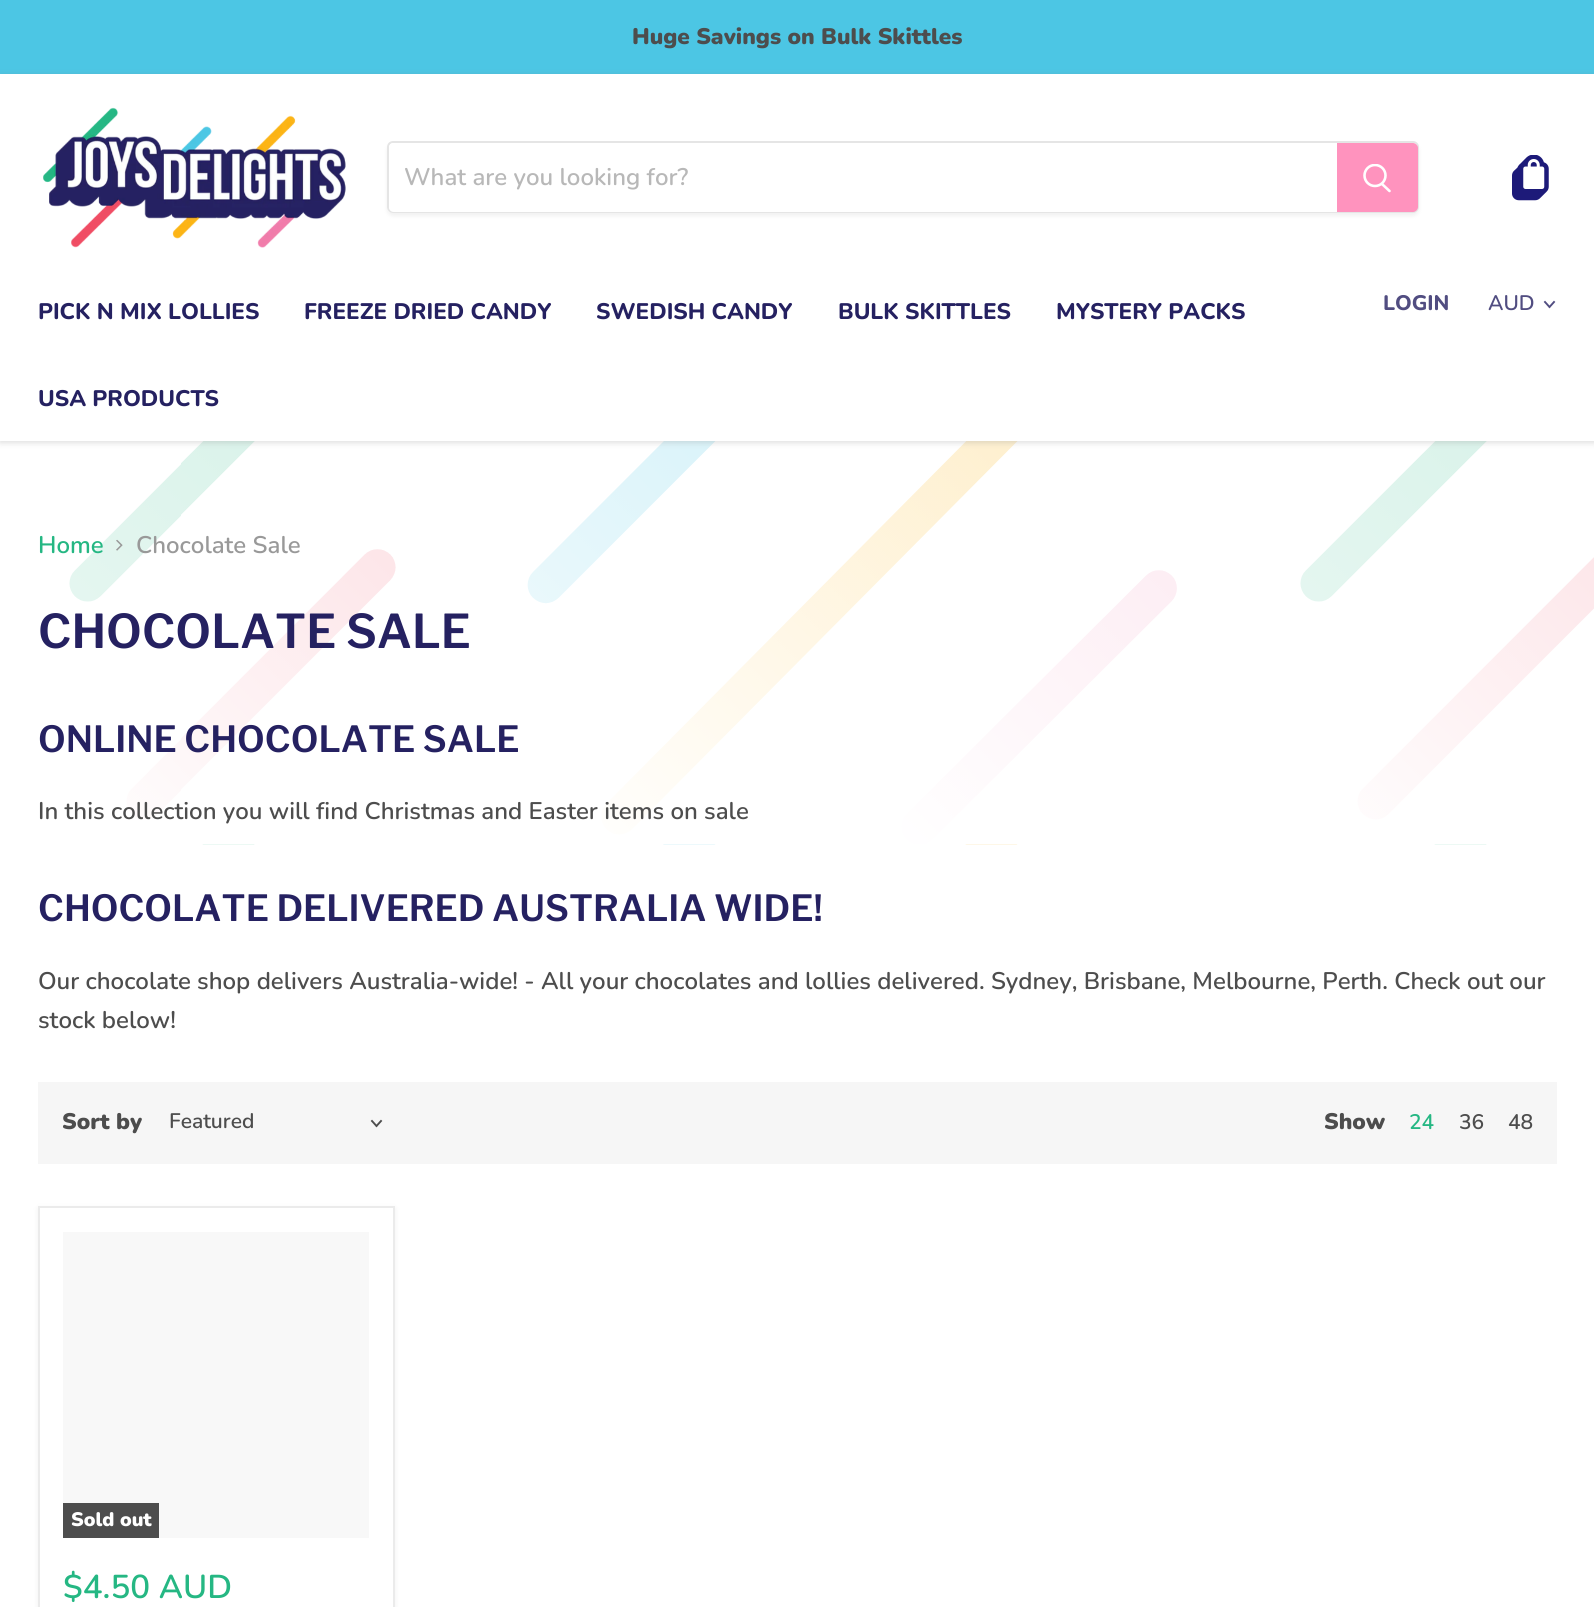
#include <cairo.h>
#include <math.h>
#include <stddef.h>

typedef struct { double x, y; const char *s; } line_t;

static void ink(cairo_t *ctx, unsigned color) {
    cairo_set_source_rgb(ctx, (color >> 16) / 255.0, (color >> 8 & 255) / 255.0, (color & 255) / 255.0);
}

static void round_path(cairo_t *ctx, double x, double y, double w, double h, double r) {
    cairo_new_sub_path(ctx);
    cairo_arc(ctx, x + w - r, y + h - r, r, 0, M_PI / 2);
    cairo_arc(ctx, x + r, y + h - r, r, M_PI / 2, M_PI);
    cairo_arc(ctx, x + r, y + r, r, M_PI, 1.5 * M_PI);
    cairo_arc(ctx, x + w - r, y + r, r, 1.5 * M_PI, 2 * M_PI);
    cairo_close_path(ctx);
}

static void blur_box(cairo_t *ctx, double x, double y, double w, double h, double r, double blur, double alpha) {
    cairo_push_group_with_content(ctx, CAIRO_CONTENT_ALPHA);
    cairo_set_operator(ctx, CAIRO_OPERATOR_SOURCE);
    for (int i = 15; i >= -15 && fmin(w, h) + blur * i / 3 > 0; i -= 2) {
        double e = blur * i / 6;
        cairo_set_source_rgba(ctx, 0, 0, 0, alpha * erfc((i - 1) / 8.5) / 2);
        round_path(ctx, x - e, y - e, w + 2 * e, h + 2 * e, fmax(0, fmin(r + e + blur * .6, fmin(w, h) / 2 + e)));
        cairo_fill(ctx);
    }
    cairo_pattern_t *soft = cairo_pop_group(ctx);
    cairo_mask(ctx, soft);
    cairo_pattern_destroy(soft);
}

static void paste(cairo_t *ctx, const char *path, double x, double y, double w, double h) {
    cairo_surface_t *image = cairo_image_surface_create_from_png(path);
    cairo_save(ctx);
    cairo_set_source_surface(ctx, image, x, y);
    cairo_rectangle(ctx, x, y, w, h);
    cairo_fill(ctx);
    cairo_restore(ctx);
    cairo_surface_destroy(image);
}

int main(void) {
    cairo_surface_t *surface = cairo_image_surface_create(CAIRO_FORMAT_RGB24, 1594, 1607);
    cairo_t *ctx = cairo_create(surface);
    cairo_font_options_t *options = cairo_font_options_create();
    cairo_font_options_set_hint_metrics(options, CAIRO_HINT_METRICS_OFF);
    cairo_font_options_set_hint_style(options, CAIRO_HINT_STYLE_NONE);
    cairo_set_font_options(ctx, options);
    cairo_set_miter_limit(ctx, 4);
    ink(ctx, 0xFFFFFF);
    cairo_paint(ctx);
    ink(ctx, 0x4CC6E4);
    cairo_rectangle(ctx, 0, 0, 1594, 74);
    cairo_fill(ctx);
    cairo_select_font_face(ctx, "Nunito Black", CAIRO_FONT_SLANT_NORMAL, CAIRO_FONT_WEIGHT_NORMAL);
    cairo_set_font_size(ctx, 22.5);
    ink(ctx, 0x4D4D4D);
    cairo_move_to(ctx, 632, 44);
    cairo_show_text(ctx, "Huge Savings on Bulk Skittles");
    paste(ctx, "media/3.png", 69, 441, 1525, 404);
    ink(ctx, 0x808080);
    blur_box(ctx, 0, 75, 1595, 368, 0, 3, 0.25);
    ink(ctx, 0xFFFFFF);
    cairo_rectangle(ctx, 0, 74, 1594, 367);
    cairo_fill(ctx);
    paste(ctx, "media/1.png", 43, 107, 303, 141);
    cairo_save(ctx);
    cairo_set_fill_rule(ctx, CAIRO_FILL_RULE_EVEN_ODD);
    cairo_new_path(ctx);
    cairo_move_to(ctx, 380, 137);
    cairo_line_to(ctx, 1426, 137);
    cairo_line_to(ctx, 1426, 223);
    cairo_line_to(ctx, 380, 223);
    cairo_close_path(ctx);
    cairo_move_to(ctx, 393, 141);
    cairo_line_to(ctx, 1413, 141);
    cairo_curve_to(ctx, 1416.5, 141, 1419, 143.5, 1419, 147);
    cairo_line_to(ctx, 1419, 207);
    cairo_curve_to(ctx, 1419, 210.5, 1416.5, 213, 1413, 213);
    cairo_line_to(ctx, 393, 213);
    cairo_curve_to(ctx, 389.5, 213, 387, 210.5, 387, 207);
    cairo_line_to(ctx, 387, 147);
    cairo_curve_to(ctx, 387, 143.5, 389.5, 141, 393, 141);
    cairo_close_path(ctx);
    cairo_clip(ctx);
    ink(ctx, 0x808080);
    blur_box(ctx, 387, 144, 1032, 72, 6, 2, 0.11);
    cairo_restore(ctx);
    round_path(ctx, 388, 142, 1030, 70, 5);
    cairo_set_source_rgba(ctx, 0.502, 0.502, 0.502, 0.2);
    cairo_stroke(ctx);
    ink(ctx, 0xFFFFFF);
    cairo_new_path(ctx);
    cairo_move_to(ctx, 394, 143);
    cairo_line_to(ctx, 1337, 143);
    cairo_line_to(ctx, 1337, 212);
    cairo_line_to(ctx, 394, 212);
    cairo_curve_to(ctx, 391, 212, 389, 210, 389, 207);
    cairo_line_to(ctx, 389, 148);
    cairo_curve_to(ctx, 389, 145, 391, 143, 394, 143);
    cairo_close_path(ctx);
    cairo_fill(ctx);
    cairo_select_font_face(ctx, "Nunito SemiBold", CAIRO_FONT_SLANT_NORMAL, CAIRO_FONT_WEIGHT_NORMAL);
    cairo_set_font_size(ctx, 24);
    ink(ctx, 0xB8B8B8);
    cairo_move_to(ctx, 404, 185);
    cairo_show_text(ctx, "What are you looking for?");
    ink(ctx, 0xFF93BE);
    cairo_new_path(ctx);
    cairo_move_to(ctx, 1338, 144);
    cairo_line_to(ctx, 1413, 144);
    cairo_curve_to(ctx, 1415, 144, 1417, 146, 1417, 148);
    cairo_line_to(ctx, 1417, 207);
    cairo_curve_to(ctx, 1417, 209, 1415, 211, 1413, 211);
    cairo_line_to(ctx, 1338, 211);
    cairo_close_path(ctx);
    cairo_fill_preserve(ctx);
    cairo_stroke(ctx);
    cairo_new_path(ctx);
    cairo_move_to(ctx, 1389.5, 191);
    cairo_line_to(ctx, 1382, 184);
    ink(ctx, 0xFFFFFF);
    cairo_set_line_width(ctx, 2.6);
    cairo_set_line_cap(ctx, CAIRO_LINE_CAP_ROUND);
    cairo_stroke(ctx);
    cairo_save(ctx);
    cairo_rectangle(ctx, 1362, 164, 30, 31);
    cairo_clip(ctx);
    cairo_arc(ctx, 1375, 175.5, 10.5, 0, 2 * M_PI);
    cairo_set_line_cap(ctx, CAIRO_LINE_CAP_BUTT);
    cairo_stroke(ctx);
    cairo_restore(ctx);
    paste(ctx, "media/2.png", 1512, 155, 37, 46);
    cairo_select_font_face(ctx, "Nunito ExtraBold", CAIRO_FONT_SLANT_NORMAL, CAIRO_FONT_WEIGHT_NORMAL);
    cairo_set_font_size(ctx, 22.5);
    ink(ctx, 0x252161);
    {
        static const line_t items[] = {
            {38, 319, "PICK N MIX LOLLIES"},
            {304, 319, "FREEZE DRIED CANDY"},
            {596, 319, "SWEDISH CANDY"},
            {838, 319, "BULK SKITTLES"},
            {1056, 319, "MYSTERY PACKS"},
            {38, 406, "USA PRODUCTS"},
        };
        for (size_t i = 0; i < sizeof items / sizeof *items; i++) {
            cairo_move_to(ctx, items[i].x, items[i].y);
            cairo_show_text(ctx, items[i].s);
        }
    }
    cairo_set_font_size(ctx, 21);
    ink(ctx, 0x514D81);
    cairo_move_to(ctx, 1383, 310);
    cairo_show_text(ctx, "LOGIN");
    cairo_select_font_face(ctx, "Nunito SemiBold", CAIRO_FONT_SLANT_NORMAL, CAIRO_FONT_WEIGHT_NORMAL);
    cairo_move_to(ctx, 1488, 310);
    cairo_show_text(ctx, "AUD");
    cairo_new_path(ctx);
    cairo_move_to(ctx, 1549.5, 307);
    cairo_line_to(ctx, 1554, 302);
    cairo_move_to(ctx, 1549.5, 307);
    cairo_line_to(ctx, 1545, 302);
    cairo_set_line_width(ctx, 1.9);
    cairo_set_line_cap(ctx, CAIRO_LINE_CAP_SQUARE);
    cairo_stroke(ctx);
    cairo_set_font_size(ctx, 24);
    ink(ctx, 0x25B783);
    cairo_move_to(ctx, 38, 553);
    cairo_show_text(ctx, "Home");
    paste(ctx, "media/4.png", 116, 539, 7, 12);
    ink(ctx, 0x999999);
    cairo_move_to(ctx, 136, 553);
    cairo_show_text(ctx, "Chocolate Sale");
    cairo_select_font_face(ctx, "Libre Franklin SemiBold", CAIRO_FONT_SLANT_NORMAL, CAIRO_FONT_WEIGHT_NORMAL);
    cairo_set_font_size(ctx, 46.5);
    ink(ctx, 0x252161);
    cairo_move_to(ctx, 38, 648);
    cairo_show_text(ctx, "CHOCOLATE SALE");
    cairo_set_font_size(ctx, 36);
    cairo_move_to(ctx, 38, 752);
    cairo_show_text(ctx, "ONLINE CHOCOLATE SALE");
    cairo_select_font_face(ctx, "Nunito SemiBold", CAIRO_FONT_SLANT_NORMAL, CAIRO_FONT_WEIGHT_NORMAL);
    cairo_set_font_size(ctx, 24);
    ink(ctx, 0x4D4D4D);
    cairo_move_to(ctx, 38, 819);
    cairo_show_text(ctx, "In this collection you will find Christmas and Easter items on sale");
    cairo_select_font_face(ctx, "Libre Franklin SemiBold", CAIRO_FONT_SLANT_NORMAL, CAIRO_FONT_WEIGHT_NORMAL);
    cairo_set_font_size(ctx, 36);
    ink(ctx, 0x252161);
    cairo_move_to(ctx, 38, 921);
    cairo_show_text(ctx, "CHOCOLATE DELIVERED AUSTRALIA WIDE!");
    cairo_select_font_face(ctx, "Nunito SemiBold", CAIRO_FONT_SLANT_NORMAL, CAIRO_FONT_WEIGHT_NORMAL);
    cairo_set_font_size(ctx, 24);
    ink(ctx, 0x4D4D4D);
    cairo_move_to(ctx, 38, 989);
    cairo_show_text(ctx, "Our chocolate shop delivers Australia-wide! - All your chocolates and lollies delivered. Sydney, Brisbane, Melbourne, Perth. Check out our");
    cairo_move_to(ctx, 38, 1028);
    cairo_show_text(ctx, "stock below!");
    ink(ctx, 0xF6F6F6);
    cairo_rectangle(ctx, 38, 1082, 1519, 82);
    cairo_fill(ctx);
    cairo_select_font_face(ctx, "Nunito Black", CAIRO_FONT_SLANT_NORMAL, CAIRO_FONT_WEIGHT_NORMAL);
    cairo_set_font_size(ctx, 22.5);
    ink(ctx, 0x4D4D4D);
    cairo_move_to(ctx, 62, 1129);
    cairo_show_text(ctx, "Sort by");
    cairo_select_font_face(ctx, "Nunito SemiBold", CAIRO_FONT_SLANT_NORMAL, CAIRO_FONT_WEIGHT_NORMAL);
    cairo_set_font_size(ctx, 21);
    cairo_move_to(ctx, 169, 1128);
    cairo_show_text(ctx, "Featured");
    cairo_new_path(ctx);
    cairo_move_to(ctx, 376.5, 1126);
    cairo_line_to(ctx, 381, 1121);
    cairo_move_to(ctx, 376.5, 1126);
    cairo_line_to(ctx, 372, 1121);
    cairo_stroke(ctx);
    cairo_select_font_face(ctx, "Nunito Black", CAIRO_FONT_SLANT_NORMAL, CAIRO_FONT_WEIGHT_NORMAL);
    cairo_set_font_size(ctx, 22.5);
    cairo_move_to(ctx, 1324, 1129);
    cairo_show_text(ctx, "Show");
    cairo_select_font_face(ctx, "Nunito SemiBold", CAIRO_FONT_SLANT_NORMAL, CAIRO_FONT_WEIGHT_NORMAL);
    cairo_set_font_size(ctx, 21);
    ink(ctx, 0x25B783);
    cairo_move_to(ctx, 1409, 1129);
    cairo_show_text(ctx, "24");
    ink(ctx, 0x4D4D4D);
    cairo_move_to(ctx, 1459, 1129);
    cairo_show_text(ctx, "36");
    cairo_move_to(ctx, 1508, 1129);
    cairo_show_text(ctx, "48");
    ink(ctx, 0x808080);
    blur_box(ctx, 38, 1208, 357, 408, 0, 3, 0.11);
    ink(ctx, 0xFFFFFF);
    cairo_rectangle(ctx, 39, 1207, 355, 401);
    cairo_fill_preserve(ctx);
    ink(ctx, 0xEBEBEB);
    cairo_set_line_width(ctx, 2);
    cairo_set_line_cap(ctx, CAIRO_LINE_CAP_BUTT);
    cairo_stroke(ctx);
    ink(ctx, 0xF8F8F8);
    cairo_rectangle(ctx, 63, 1232, 306, 306);
    cairo_fill(ctx);
    ink(ctx, 0x4D4D4D);
    cairo_rectangle(ctx, 63, 1503, 96, 35);
    cairo_fill(ctx);
    cairo_select_font_face(ctx, "Nunito Black", CAIRO_FONT_SLANT_NORMAL, CAIRO_FONT_WEIGHT_NORMAL);
    cairo_set_font_size(ctx, 19.5);
    ink(ctx, 0xFFFFFF);
    cairo_move_to(ctx, 71, 1526);
    cairo_show_text(ctx, "Sold out");
    cairo_select_font_face(ctx, "Nunito SemiBold", CAIRO_FONT_SLANT_NORMAL, CAIRO_FONT_WEIGHT_NORMAL);
    cairo_set_font_size(ctx, 33);
    ink(ctx, 0x25B783);
    cairo_move_to(ctx, 63, 1598);
    cairo_show_text(ctx, "$4.50 AUD");
    cairo_surface_write_to_png(surface, "image.png");
    cairo_font_options_destroy(options);
    cairo_destroy(ctx);
    cairo_surface_destroy(surface);
    return 0;
}
